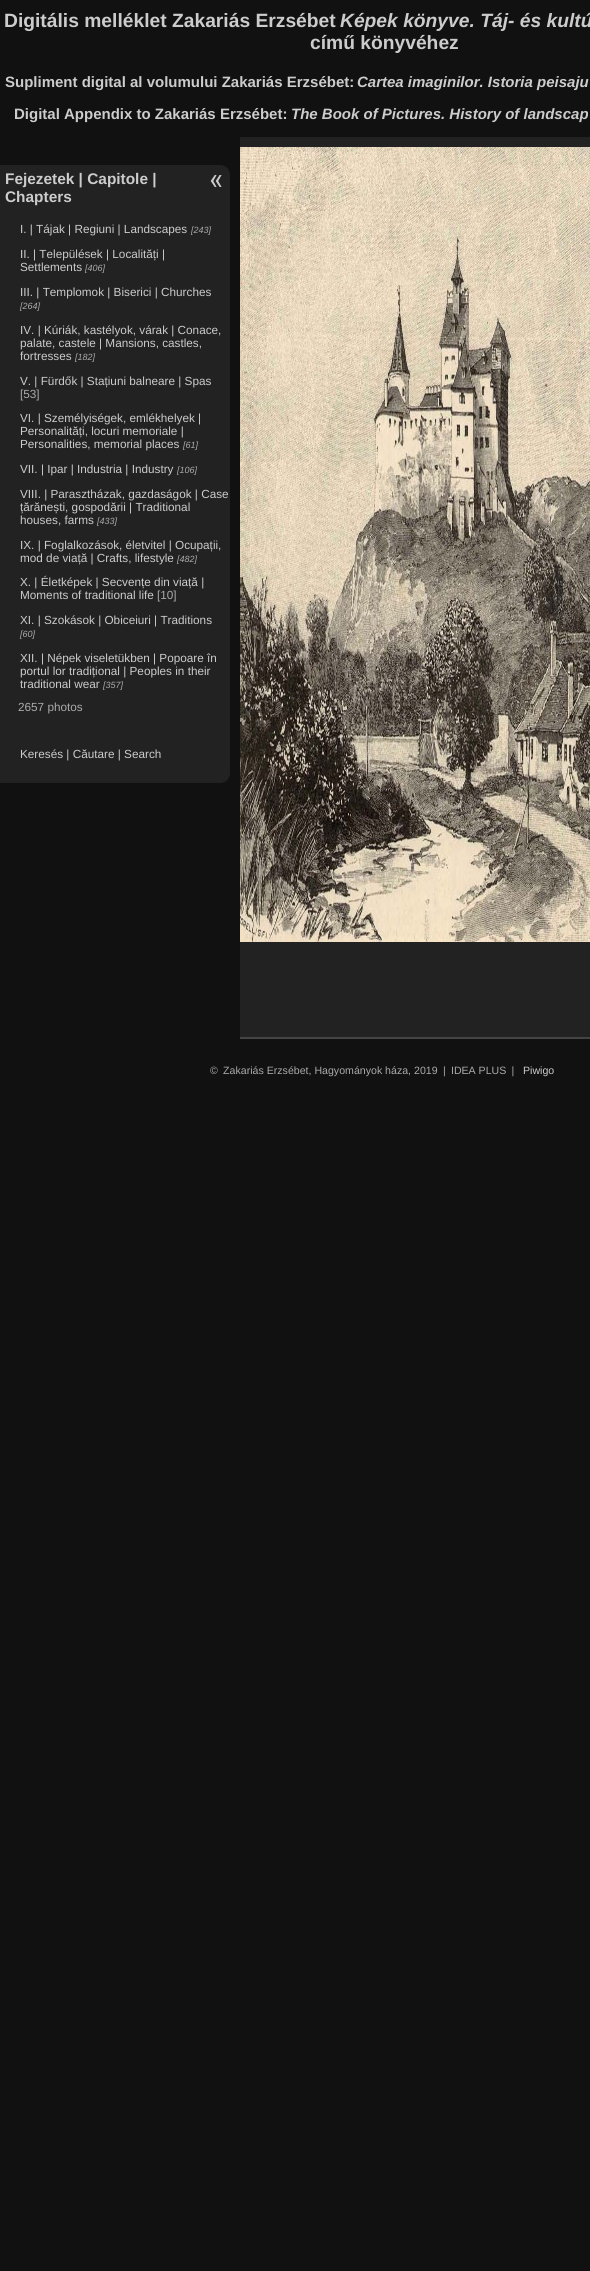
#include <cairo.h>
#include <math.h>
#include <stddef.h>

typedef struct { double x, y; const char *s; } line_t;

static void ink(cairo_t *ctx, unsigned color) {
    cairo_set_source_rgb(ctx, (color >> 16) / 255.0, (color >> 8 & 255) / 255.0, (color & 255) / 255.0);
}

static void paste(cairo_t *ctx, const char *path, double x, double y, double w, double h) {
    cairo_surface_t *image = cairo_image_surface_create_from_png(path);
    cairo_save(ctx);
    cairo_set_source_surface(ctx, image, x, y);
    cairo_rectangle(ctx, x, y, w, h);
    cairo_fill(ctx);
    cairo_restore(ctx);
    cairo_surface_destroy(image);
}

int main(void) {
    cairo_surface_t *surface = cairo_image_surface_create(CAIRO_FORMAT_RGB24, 590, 2271);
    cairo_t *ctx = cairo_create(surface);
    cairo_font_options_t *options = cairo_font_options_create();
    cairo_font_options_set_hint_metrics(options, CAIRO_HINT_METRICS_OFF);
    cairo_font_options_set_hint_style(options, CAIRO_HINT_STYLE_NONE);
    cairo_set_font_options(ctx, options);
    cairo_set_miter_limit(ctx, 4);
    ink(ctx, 0x111111);
    cairo_paint(ctx);
    cairo_select_font_face(ctx, "Liberation Sans", CAIRO_FONT_SLANT_NORMAL, CAIRO_FONT_WEIGHT_BOLD);
    cairo_set_font_size(ctx, 19.25);
    ink(ctx, 0xCCCCCC);
    cairo_move_to(ctx, 4, 27);
    cairo_show_text(ctx, "Digitális melléklet Zakariás Erzsébet");
    cairo_select_font_face(ctx, "Liberation Sans", CAIRO_FONT_SLANT_ITALIC, CAIRO_FONT_WEIGHT_BOLD);
    cairo_move_to(ctx, 340, 27);
    cairo_show_text(ctx, "Képek könyve. Táj- és kultú");
    cairo_select_font_face(ctx, "Liberation Sans", CAIRO_FONT_SLANT_NORMAL, CAIRO_FONT_WEIGHT_BOLD);
    cairo_move_to(ctx, 310, 49);
    cairo_show_text(ctx, "című könyvéhez");
    cairo_set_font_size(ctx, 15);
    cairo_move_to(ctx, 5, 87);
    cairo_show_text(ctx, "Supliment digital al volumului Zakariás Erzsébet:");
    cairo_select_font_face(ctx, "Liberation Sans", CAIRO_FONT_SLANT_ITALIC, CAIRO_FONT_WEIGHT_BOLD);
    cairo_move_to(ctx, 357, 87);
    cairo_show_text(ctx, "Cartea imaginilor. Istoria peisaju");
    cairo_select_font_face(ctx, "Liberation Sans", CAIRO_FONT_SLANT_NORMAL, CAIRO_FONT_WEIGHT_BOLD);
    cairo_move_to(ctx, 14, 119);
    cairo_show_text(ctx, "Digital Appendix to Zakariás Erzsébet:");
    cairo_select_font_face(ctx, "Liberation Sans", CAIRO_FONT_SLANT_ITALIC, CAIRO_FONT_WEIGHT_BOLD);
    cairo_move_to(ctx, 291, 119);
    cairo_show_text(ctx, "The Book of Pictures. History of landscap");
    ink(ctx, 0x222222);
    cairo_new_path(ctx);
    cairo_move_to(ctx, 0, 165);
    cairo_line_to(ctx, 220, 165);
    cairo_curve_to(ctx, 225.5, 165, 230, 169.5, 230, 175);
    cairo_line_to(ctx, 230, 773);
    cairo_curve_to(ctx, 230, 778.5, 225.5, 783, 220, 783);
    cairo_line_to(ctx, 0, 783);
    cairo_close_path(ctx);
    cairo_fill(ctx);
    cairo_select_font_face(ctx, "Liberation Sans", CAIRO_FONT_SLANT_NORMAL, CAIRO_FONT_WEIGHT_BOLD);
    cairo_set_font_size(ctx, 15.4);
    ink(ctx, 0xCCCCCC);
    cairo_move_to(ctx, 5, 184);
    cairo_show_text(ctx, "Fejezetek | Capitole |");
    cairo_move_to(ctx, 5, 202);
    cairo_show_text(ctx, "Chapters");
    cairo_select_font_face(ctx, "Liberation Sans", CAIRO_FONT_SLANT_NORMAL, CAIRO_FONT_WEIGHT_NORMAL);
    cairo_set_font_size(ctx, 11.75);
    cairo_move_to(ctx, 20, 233);
    cairo_show_text(ctx, "I. | Tájak | Regiuni | Landscapes");
    cairo_select_font_face(ctx, "Liberation Sans", CAIRO_FONT_SLANT_ITALIC, CAIRO_FONT_WEIGHT_NORMAL);
    cairo_set_font_size(ctx, 9);
    ink(ctx, 0xAAAAAA);
    cairo_move_to(ctx, 191, 233);
    cairo_show_text(ctx, "[243]");
    cairo_select_font_face(ctx, "Liberation Sans", CAIRO_FONT_SLANT_NORMAL, CAIRO_FONT_WEIGHT_NORMAL);
    cairo_set_font_size(ctx, 11.75);
    ink(ctx, 0xCCCCCC);
    cairo_move_to(ctx, 20, 258);
    cairo_show_text(ctx, "II. | Települések | Localități |");
    cairo_move_to(ctx, 20, 271);
    cairo_show_text(ctx, "Settlements");
    cairo_select_font_face(ctx, "Liberation Sans", CAIRO_FONT_SLANT_ITALIC, CAIRO_FONT_WEIGHT_NORMAL);
    cairo_set_font_size(ctx, 9);
    ink(ctx, 0xAAAAAA);
    cairo_move_to(ctx, 85, 271);
    cairo_show_text(ctx, "[406]");
    cairo_select_font_face(ctx, "Liberation Sans", CAIRO_FONT_SLANT_NORMAL, CAIRO_FONT_WEIGHT_NORMAL);
    cairo_set_font_size(ctx, 11.75);
    ink(ctx, 0xCCCCCC);
    cairo_move_to(ctx, 20, 296);
    cairo_show_text(ctx, "III. | Templomok | Biserici | Churches");
    cairo_select_font_face(ctx, "Liberation Sans", CAIRO_FONT_SLANT_ITALIC, CAIRO_FONT_WEIGHT_NORMAL);
    cairo_set_font_size(ctx, 9);
    ink(ctx, 0xAAAAAA);
    cairo_move_to(ctx, 20, 309);
    cairo_show_text(ctx, "[264]");
    cairo_select_font_face(ctx, "Liberation Sans", CAIRO_FONT_SLANT_NORMAL, CAIRO_FONT_WEIGHT_NORMAL);
    cairo_set_font_size(ctx, 11.75);
    ink(ctx, 0xCCCCCC);
    {
        static const line_t items[] = {
            {20, 334, "IV. | Kúriák, kastélyok, várak | Conace,"},
            {20, 347, "palate, castele | Mansions, castles,"},
            {20, 360, "fortresses"},
        };
        for (size_t i = 0; i < sizeof items / sizeof *items; i++) {
            cairo_move_to(ctx, items[i].x, items[i].y);
            cairo_show_text(ctx, items[i].s);
        }
    }
    cairo_select_font_face(ctx, "Liberation Sans", CAIRO_FONT_SLANT_ITALIC, CAIRO_FONT_WEIGHT_NORMAL);
    cairo_set_font_size(ctx, 9);
    ink(ctx, 0xAAAAAA);
    cairo_move_to(ctx, 75, 360);
    cairo_show_text(ctx, "[182]");
    cairo_select_font_face(ctx, "Liberation Sans", CAIRO_FONT_SLANT_NORMAL, CAIRO_FONT_WEIGHT_NORMAL);
    cairo_set_font_size(ctx, 11.75);
    ink(ctx, 0xCCCCCC);
    cairo_move_to(ctx, 20, 385);
    cairo_show_text(ctx, "V. | Fürdők | Stațiuni balneare | Spas");
    ink(ctx, 0xAAAAAA);
    cairo_move_to(ctx, 20, 398);
    cairo_show_text(ctx, "[53]");
    ink(ctx, 0xCCCCCC);
    {
        static const line_t items[] = {
            {20, 422, "VI. | Személyiségek, emlékhelyek |"},
            {20, 435, "Personalități, locuri memoriale |"},
            {20, 448, "Personalities, memorial places"},
        };
        for (size_t i = 0; i < sizeof items / sizeof *items; i++) {
            cairo_move_to(ctx, items[i].x, items[i].y);
            cairo_show_text(ctx, items[i].s);
        }
    }
    cairo_select_font_face(ctx, "Liberation Sans", CAIRO_FONT_SLANT_ITALIC, CAIRO_FONT_WEIGHT_NORMAL);
    cairo_set_font_size(ctx, 9);
    ink(ctx, 0xAAAAAA);
    cairo_move_to(ctx, 183, 448);
    cairo_show_text(ctx, "[61]");
    cairo_select_font_face(ctx, "Liberation Sans", CAIRO_FONT_SLANT_NORMAL, CAIRO_FONT_WEIGHT_NORMAL);
    cairo_set_font_size(ctx, 11.75);
    ink(ctx, 0xCCCCCC);
    cairo_move_to(ctx, 20, 473);
    cairo_show_text(ctx, "VII. | Ipar | Industria | Industry");
    cairo_select_font_face(ctx, "Liberation Sans", CAIRO_FONT_SLANT_ITALIC, CAIRO_FONT_WEIGHT_NORMAL);
    cairo_set_font_size(ctx, 9);
    ink(ctx, 0xAAAAAA);
    cairo_move_to(ctx, 177, 473);
    cairo_show_text(ctx, "[106]");
    cairo_select_font_face(ctx, "Liberation Sans", CAIRO_FONT_SLANT_NORMAL, CAIRO_FONT_WEIGHT_NORMAL);
    cairo_set_font_size(ctx, 11.75);
    ink(ctx, 0xCCCCCC);
    {
        static const line_t items[] = {
            {20, 498, "VIII. | Parasztházak, gazdaságok | Case"},
            {20, 511, "țărănești, gospodării | Traditional"},
            {20, 524, "houses, farms"},
        };
        for (size_t i = 0; i < sizeof items / sizeof *items; i++) {
            cairo_move_to(ctx, items[i].x, items[i].y);
            cairo_show_text(ctx, items[i].s);
        }
    }
    cairo_select_font_face(ctx, "Liberation Sans", CAIRO_FONT_SLANT_ITALIC, CAIRO_FONT_WEIGHT_NORMAL);
    cairo_set_font_size(ctx, 9);
    ink(ctx, 0xAAAAAA);
    cairo_move_to(ctx, 97, 524);
    cairo_show_text(ctx, "[433]");
    cairo_select_font_face(ctx, "Liberation Sans", CAIRO_FONT_SLANT_NORMAL, CAIRO_FONT_WEIGHT_NORMAL);
    cairo_set_font_size(ctx, 11.75);
    ink(ctx, 0xCCCCCC);
    cairo_move_to(ctx, 20, 549);
    cairo_show_text(ctx, "IX. | Foglalkozások, életvitel | Ocupații,");
    cairo_move_to(ctx, 20, 562);
    cairo_show_text(ctx, "mod de viață | Crafts, lifestyle");
    cairo_select_font_face(ctx, "Liberation Sans", CAIRO_FONT_SLANT_ITALIC, CAIRO_FONT_WEIGHT_NORMAL);
    cairo_set_font_size(ctx, 9);
    ink(ctx, 0xAAAAAA);
    cairo_move_to(ctx, 177, 562);
    cairo_show_text(ctx, "[482]");
    cairo_select_font_face(ctx, "Liberation Sans", CAIRO_FONT_SLANT_NORMAL, CAIRO_FONT_WEIGHT_NORMAL);
    cairo_set_font_size(ctx, 11.75);
    ink(ctx, 0xCCCCCC);
    cairo_move_to(ctx, 20, 586);
    cairo_show_text(ctx, "X. | Életképek | Secvențe din viață |");
    cairo_move_to(ctx, 20, 599);
    cairo_show_text(ctx, "Moments of traditional life");
    ink(ctx, 0xAAAAAA);
    cairo_move_to(ctx, 157, 599);
    cairo_show_text(ctx, "[10]");
    ink(ctx, 0xCCCCCC);
    cairo_move_to(ctx, 20, 624);
    cairo_show_text(ctx, "XI. | Szokások | Obiceiuri | Traditions");
    cairo_select_font_face(ctx, "Liberation Sans", CAIRO_FONT_SLANT_ITALIC, CAIRO_FONT_WEIGHT_NORMAL);
    cairo_set_font_size(ctx, 9);
    ink(ctx, 0xAAAAAA);
    cairo_move_to(ctx, 20, 637);
    cairo_show_text(ctx, "[60]");
    cairo_select_font_face(ctx, "Liberation Sans", CAIRO_FONT_SLANT_NORMAL, CAIRO_FONT_WEIGHT_NORMAL);
    cairo_set_font_size(ctx, 11.75);
    ink(ctx, 0xCCCCCC);
    {
        static const line_t items[] = {
            {20, 662, "XII. | Népek viseletükben | Popoare în"},
            {20, 675, "portul lor tradițional | Peoples in their"},
            {20, 688, "traditional wear"},
        };
        for (size_t i = 0; i < sizeof items / sizeof *items; i++) {
            cairo_move_to(ctx, items[i].x, items[i].y);
            cairo_show_text(ctx, items[i].s);
        }
    }
    cairo_select_font_face(ctx, "Liberation Sans", CAIRO_FONT_SLANT_ITALIC, CAIRO_FONT_WEIGHT_NORMAL);
    cairo_set_font_size(ctx, 9);
    ink(ctx, 0xAAAAAA);
    cairo_move_to(ctx, 103, 688);
    cairo_show_text(ctx, "[357]");
    cairo_select_font_face(ctx, "Liberation Sans", CAIRO_FONT_SLANT_NORMAL, CAIRO_FONT_WEIGHT_NORMAL);
    cairo_set_font_size(ctx, 11.75);
    cairo_move_to(ctx, 18, 711);
    cairo_show_text(ctx, "2657 photos");
    ink(ctx, 0xCCCCCC);
    cairo_move_to(ctx, 20, 758);
    cairo_show_text(ctx, "Keresés | Căutare | Search");
    ink(ctx, 0x222222);
    cairo_rectangle(ctx, 240, 137, 350, 900);
    cairo_fill(ctx);
    ink(ctx, 0x444444);
    cairo_rectangle(ctx, 240, 1037, 350, 2);
    cairo_fill(ctx);
    paste(ctx, "media/1.png", 240, 147, 350, 795);
    paste(ctx, "media/2.png", 210, 175, 12, 12);
    cairo_set_font_size(ctx, 10.6);
    ink(ctx, 0xAAAAAA);
    cairo_move_to(ctx, 210, 1074);
    cairo_show_text(ctx, "© Zakariás Erzsébet, Hagyományok háza, 2019 | IDEA PLUS |");
    ink(ctx, 0xCCCCCC);
    cairo_move_to(ctx, 523, 1074);
    cairo_show_text(ctx, "Piwigo");
    cairo_surface_write_to_png(surface, "image.png");
    cairo_font_options_destroy(options);
    cairo_destroy(ctx);
    cairo_surface_destroy(surface);
    return 0;
}
